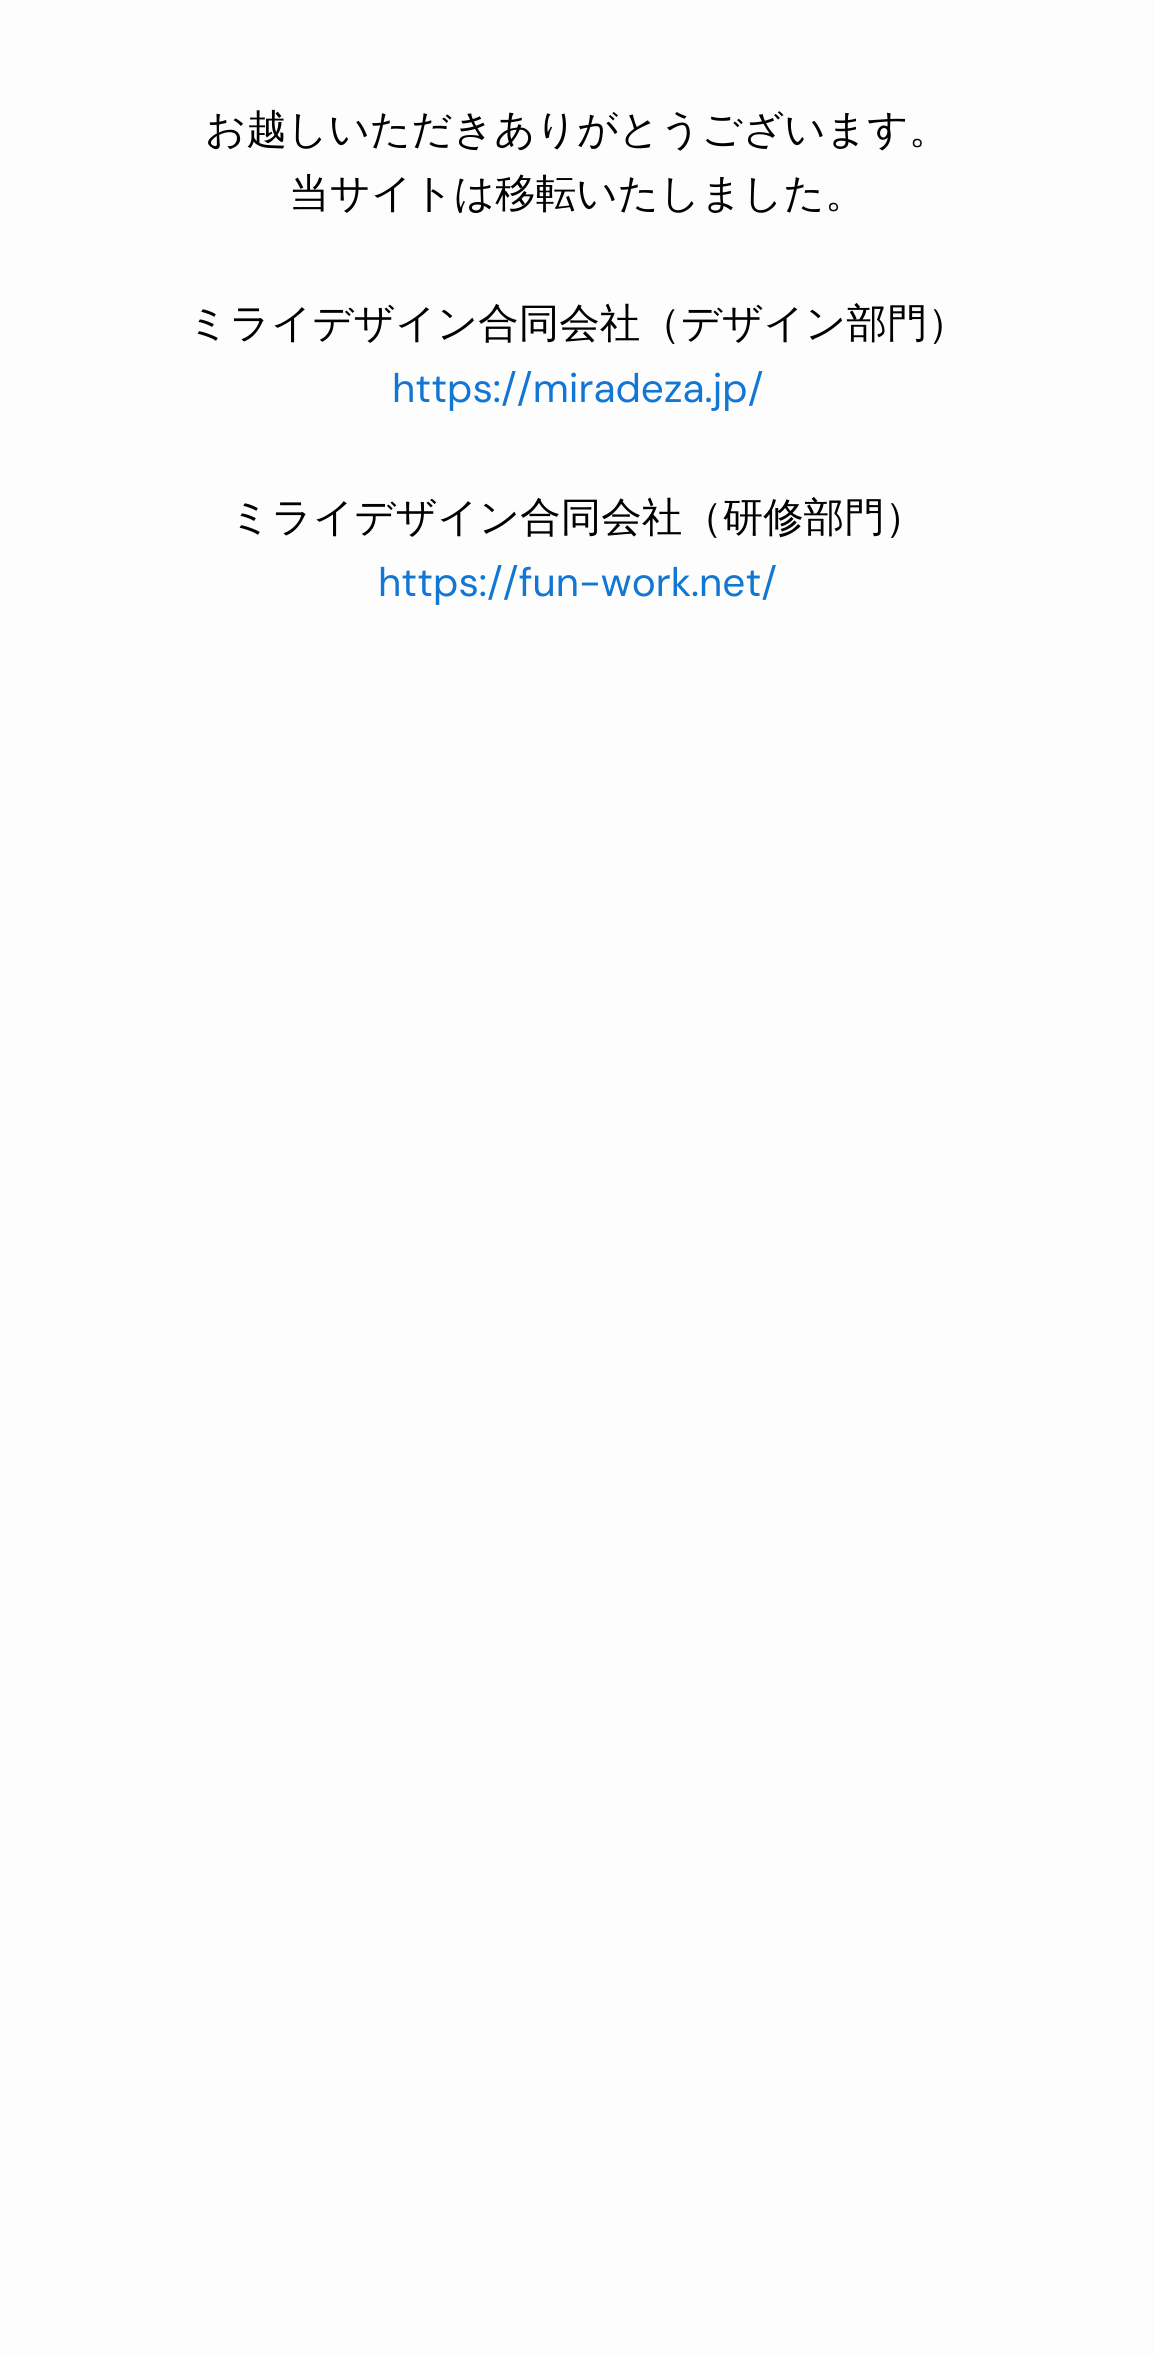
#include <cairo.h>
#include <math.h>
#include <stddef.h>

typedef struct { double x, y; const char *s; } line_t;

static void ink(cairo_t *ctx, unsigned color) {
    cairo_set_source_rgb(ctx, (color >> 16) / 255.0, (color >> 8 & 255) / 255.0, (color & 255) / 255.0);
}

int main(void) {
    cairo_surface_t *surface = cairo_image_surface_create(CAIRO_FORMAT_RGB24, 1154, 2357);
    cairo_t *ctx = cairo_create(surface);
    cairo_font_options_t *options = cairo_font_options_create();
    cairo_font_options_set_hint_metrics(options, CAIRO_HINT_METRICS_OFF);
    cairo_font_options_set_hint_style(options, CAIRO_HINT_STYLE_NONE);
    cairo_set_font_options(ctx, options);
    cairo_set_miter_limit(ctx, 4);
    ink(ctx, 0xFDFDFD);
    cairo_paint(ctx);
    cairo_select_font_face(ctx, "WenQuanYi Zen Hei Medium", CAIRO_FONT_SLANT_NORMAL, CAIRO_FONT_WEIGHT_NORMAL);
    cairo_set_font_size(ctx, 40.5);
    ink(ctx, 0x000000);
    {
        static const line_t items[] = {
            {205, 143, "お越しいただきありがとうございます。"},
            {289, 207, "当サイトは移転いたしました。"},
            {188, 337, "ミライデザイン合同会社（デザイン部門）"},
        };
        for (size_t i = 0; i < sizeof items / sizeof *items; i++) {
            cairo_move_to(ctx, items[i].x, items[i].y);
            cairo_show_text(ctx, items[i].s);
        }
    }
    cairo_select_font_face(ctx, "DM Sans", CAIRO_FONT_SLANT_NORMAL, CAIRO_FONT_WEIGHT_NORMAL);
    ink(ctx, 0x1176D4);
    cairo_move_to(ctx, 392, 402);
    cairo_show_text(ctx, "https://miradeza.jp/");
    cairo_select_font_face(ctx, "WenQuanYi Zen Hei Medium", CAIRO_FONT_SLANT_NORMAL, CAIRO_FONT_WEIGHT_NORMAL);
    ink(ctx, 0x000000);
    cairo_move_to(ctx, 230, 531);
    cairo_show_text(ctx, "ミライデザイン合同会社（研修部門）");
    cairo_select_font_face(ctx, "DM Sans", CAIRO_FONT_SLANT_NORMAL, CAIRO_FONT_WEIGHT_NORMAL);
    ink(ctx, 0x1176D4);
    cairo_move_to(ctx, 378, 596);
    cairo_show_text(ctx, "https://fun-work.net/");
    cairo_surface_write_to_png(surface, "image.png");
    cairo_font_options_destroy(options);
    cairo_destroy(ctx);
    cairo_surface_destroy(surface);
    return 0;
}
